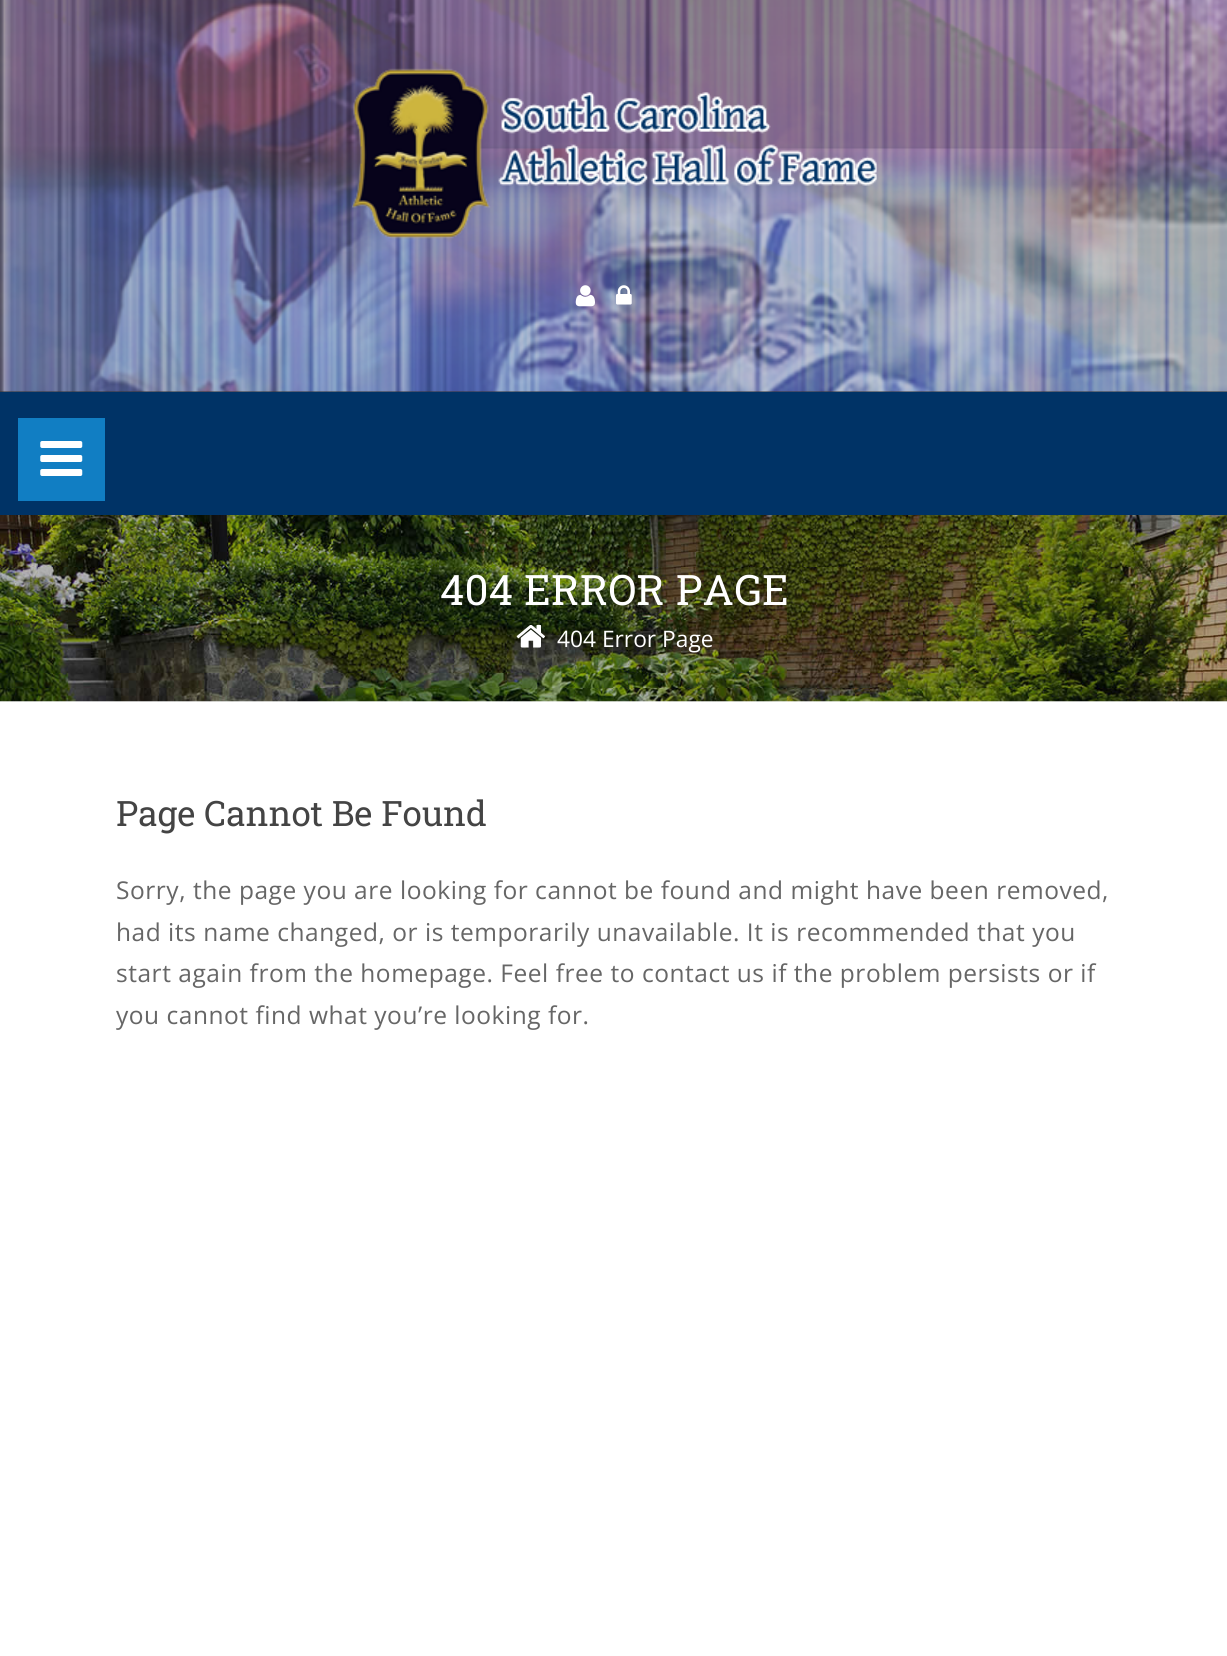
#include <cairo.h>
#include <math.h>
#include <stddef.h>

typedef struct { double x, y; const char *s; } line_t;

static void ink(cairo_t *ctx, unsigned color) {
    cairo_set_source_rgb(ctx, (color >> 16) / 255.0, (color >> 8 & 255) / 255.0, (color & 255) / 255.0);
}

static void write_spaced(cairo_t *ctx, double x, double y, const char *s, double letter, double word) {
    cairo_move_to(ctx, x, y);
    while (*s) {
        char ch[5] = {0};
        int n = 0;
        do ch[n++] = *s++; while ((*s & 0xC0) == 0x80);
        cairo_show_text(ctx, ch);
        cairo_rel_move_to(ctx, letter + word * (*ch == ' '), 0);
    }
}

static void paste(cairo_t *ctx, const char *path, double x, double y, double w, double h) {
    cairo_surface_t *image = cairo_image_surface_create_from_png(path);
    cairo_save(ctx);
    cairo_set_source_surface(ctx, image, x, y);
    cairo_rectangle(ctx, x, y, w, h);
    cairo_fill(ctx);
    cairo_restore(ctx);
    cairo_surface_destroy(image);
}

int main(void) {
    cairo_surface_t *surface = cairo_image_surface_create(CAIRO_FORMAT_RGB24, 1227, 1656);
    cairo_t *ctx = cairo_create(surface);
    cairo_font_options_t *options = cairo_font_options_create();
    cairo_font_options_set_hint_metrics(options, CAIRO_HINT_METRICS_OFF);
    cairo_font_options_set_hint_style(options, CAIRO_HINT_STYLE_NONE);
    cairo_set_font_options(ctx, options);
    cairo_set_miter_limit(ctx, 4);
    ink(ctx, 0xFFFFFF);
    cairo_paint(ctx);
    ink(ctx, 0x333333);
    cairo_rectangle(ctx, 0, 391, 1227, 1);
    cairo_fill(ctx);
    paste(ctx, "media/1.png", 0, 0, 1227, 392);
    paste(ctx, "media/2.png", 352, 68, 525, 171);
    paste(ctx, "media/3.png", 575, 285, 20, 22);
    paste(ctx, "media/4.png", 616, 285, 16, 20);
    ink(ctx, 0x003366);
    cairo_rectangle(ctx, 0, 392, 1227, 123);
    cairo_fill(ctx);
    ink(ctx, 0x117EC3);
    cairo_rectangle(ctx, 18, 418, 87, 83);
    cairo_fill(ctx);
    paste(ctx, "media/5.png", 40, 441, 43, 35);
    ink(ctx, 0xF5F5F5);
    cairo_rectangle(ctx, 0, 701, 1227, 1);
    cairo_fill(ctx);
    paste(ctx, "media/6.png", 0, 515, 1227, 187);
    cairo_select_font_face(ctx, "Roboto Slab", CAIRO_FONT_SLANT_NORMAL, CAIRO_FONT_WEIGHT_NORMAL);
    cairo_set_font_size(ctx, 42);
    ink(ctx, 0xFFFFFF);
    write_spaced(ctx, 440, 605, "404 ERROR PAGE", 0.25, 0);
    paste(ctx, "media/7.png", 516, 625, 29, 23);
    cairo_select_font_face(ctx, "Open Sans", CAIRO_FONT_SLANT_NORMAL, CAIRO_FONT_WEIGHT_NORMAL);
    cairo_set_font_size(ctx, 22.75);
    cairo_move_to(ctx, 557, 647);
    cairo_show_text(ctx, "404 Error Page");
    cairo_select_font_face(ctx, "Roboto Slab", CAIRO_FONT_SLANT_NORMAL, CAIRO_FONT_WEIGHT_NORMAL);
    cairo_set_font_size(ctx, 35);
    ink(ctx, 0x444444);
    cairo_move_to(ctx, 116, 826);
    cairo_show_text(ctx, "Page Cannot Be Found");
    cairo_select_font_face(ctx, "Open Sans", CAIRO_FONT_SLANT_NORMAL, CAIRO_FONT_WEIGHT_NORMAL);
    cairo_set_font_size(ctx, 24.5);
    ink(ctx, 0x666666);
    {
        static const line_t items[] = {
            {116, 899, "Sorry, the page you are looking for cannot be found and might have been removed,"},
            {116, 941, "had its name changed, or is temporarily unavailable. It is recommended that you"},
            {116, 982, "start again from the homepage. Feel free to contact us if the problem persists or if"},
            {116, 1024, "you cannot find what you’re looking for."},
        };
        for (size_t i = 0; i < sizeof items / sizeof *items; i++) {
            write_spaced(ctx, items[i].x, items[i].y, items[i].s, 0.53, 0);
        }
    }
    cairo_surface_write_to_png(surface, "image.png");
    cairo_font_options_destroy(options);
    cairo_destroy(ctx);
    cairo_surface_destroy(surface);
    return 0;
}
